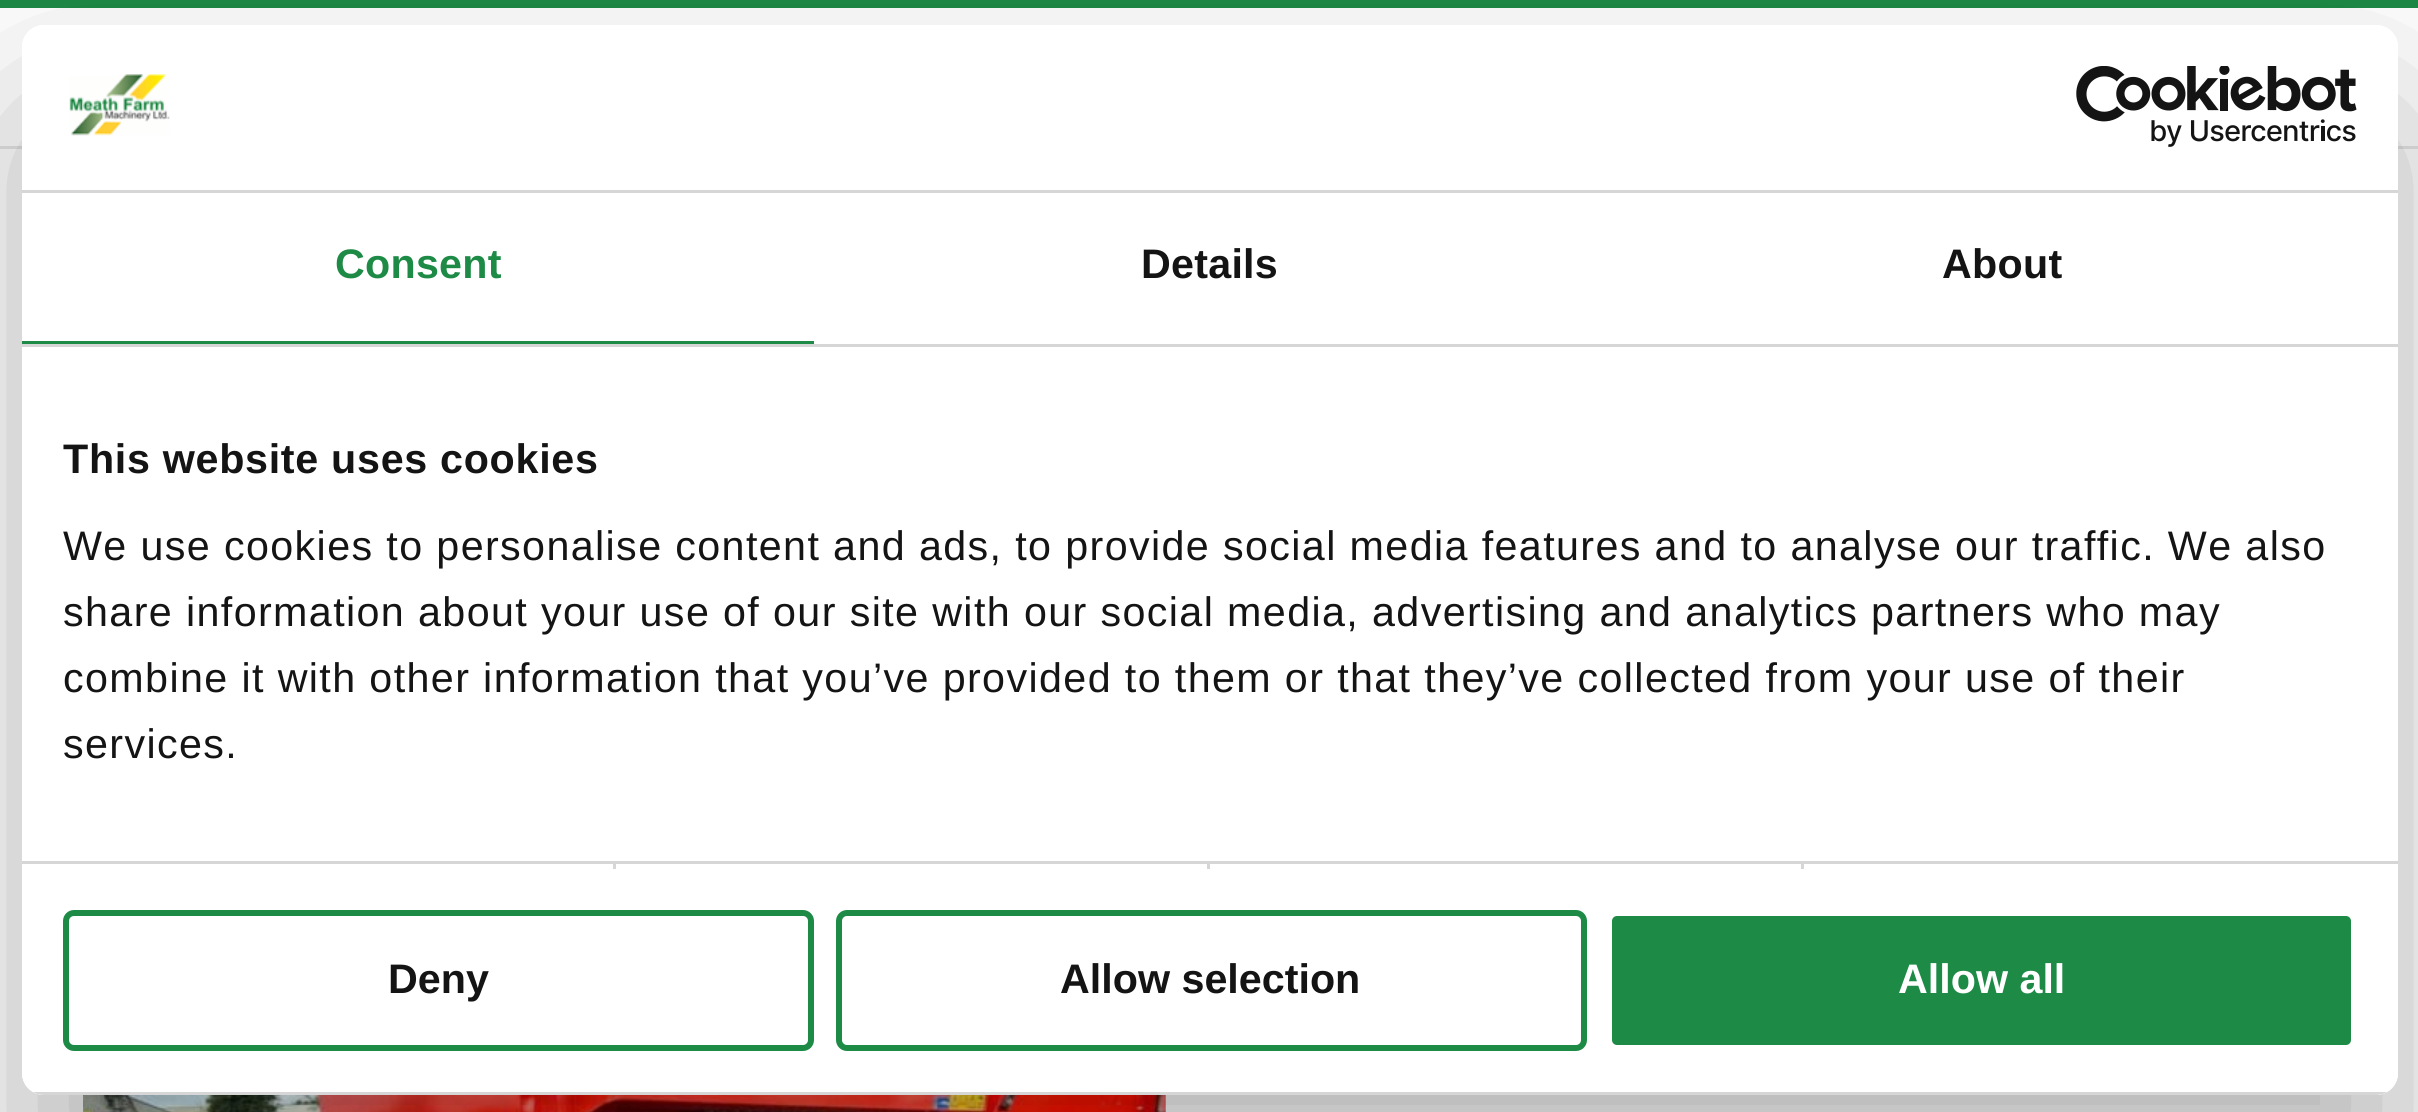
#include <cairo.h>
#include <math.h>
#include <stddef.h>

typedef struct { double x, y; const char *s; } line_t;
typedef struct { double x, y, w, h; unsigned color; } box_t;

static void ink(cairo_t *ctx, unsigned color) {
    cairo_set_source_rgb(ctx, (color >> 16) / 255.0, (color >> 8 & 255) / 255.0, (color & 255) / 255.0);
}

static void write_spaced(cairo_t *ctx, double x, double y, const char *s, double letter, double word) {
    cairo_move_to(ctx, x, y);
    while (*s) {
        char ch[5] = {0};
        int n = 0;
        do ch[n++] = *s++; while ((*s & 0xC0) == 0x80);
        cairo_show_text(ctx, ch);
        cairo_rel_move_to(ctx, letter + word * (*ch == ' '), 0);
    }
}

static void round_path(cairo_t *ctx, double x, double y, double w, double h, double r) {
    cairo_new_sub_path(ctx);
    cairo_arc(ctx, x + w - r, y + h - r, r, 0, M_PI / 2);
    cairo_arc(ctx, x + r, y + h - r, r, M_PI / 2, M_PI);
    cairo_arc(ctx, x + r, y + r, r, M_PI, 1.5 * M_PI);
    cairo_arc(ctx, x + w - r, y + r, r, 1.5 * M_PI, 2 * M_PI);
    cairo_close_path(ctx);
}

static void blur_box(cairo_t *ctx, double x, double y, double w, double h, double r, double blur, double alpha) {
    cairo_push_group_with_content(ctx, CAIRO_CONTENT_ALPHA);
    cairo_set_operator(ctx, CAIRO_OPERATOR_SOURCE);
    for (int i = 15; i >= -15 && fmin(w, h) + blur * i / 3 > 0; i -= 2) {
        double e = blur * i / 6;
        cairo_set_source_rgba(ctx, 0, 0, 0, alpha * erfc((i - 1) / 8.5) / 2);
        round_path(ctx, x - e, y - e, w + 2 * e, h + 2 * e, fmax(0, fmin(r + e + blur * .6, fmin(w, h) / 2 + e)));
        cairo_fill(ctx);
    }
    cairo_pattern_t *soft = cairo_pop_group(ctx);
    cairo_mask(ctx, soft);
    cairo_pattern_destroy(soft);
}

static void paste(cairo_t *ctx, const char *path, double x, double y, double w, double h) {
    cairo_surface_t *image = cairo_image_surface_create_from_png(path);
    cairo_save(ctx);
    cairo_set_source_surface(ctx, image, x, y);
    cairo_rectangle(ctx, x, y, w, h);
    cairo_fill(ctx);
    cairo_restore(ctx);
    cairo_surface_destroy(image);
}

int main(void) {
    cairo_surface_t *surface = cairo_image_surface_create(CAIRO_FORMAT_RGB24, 2418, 1112);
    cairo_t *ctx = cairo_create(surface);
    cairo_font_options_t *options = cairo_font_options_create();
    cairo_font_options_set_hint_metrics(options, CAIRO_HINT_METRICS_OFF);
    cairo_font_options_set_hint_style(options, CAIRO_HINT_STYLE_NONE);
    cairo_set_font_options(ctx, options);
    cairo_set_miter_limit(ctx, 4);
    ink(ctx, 0xFFFFFF);
    cairo_paint(ctx);
    ink(ctx, 0x1D8B46);
    cairo_rectangle(ctx, 0, 0, 2418, 8);
    cairo_fill(ctx);
    ink(ctx, 0xE5E5E5);
    cairo_rectangle(ctx, 0, 146, 2418, 3);
    cairo_fill(ctx);
    paste(ctx, "media/2.png", 1165, 1095, 1, 17);
    paste(ctx, "media/1.png", 83, 1095, 1083, 17);
    cairo_save(ctx);
    cairo_set_fill_rule(ctx, CAIRO_FILL_RULE_EVEN_ODD);
    cairo_new_path(ctx);
    cairo_move_to(ctx, 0, 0);
    cairo_line_to(ctx, 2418, 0);
    cairo_line_to(ctx, 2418, 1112);
    cairo_line_to(ctx, 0, 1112);
    cairo_close_path(ctx);
    cairo_move_to(ctx, 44, 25);
    cairo_line_to(ctx, 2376, 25);
    cairo_curve_to(ctx, 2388, 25, 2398, 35, 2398, 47);
    cairo_line_to(ctx, 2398, 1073);
    cairo_curve_to(ctx, 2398, 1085, 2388, 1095, 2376, 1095);
    cairo_line_to(ctx, 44, 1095);
    cairo_curve_to(ctx, 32, 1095, 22, 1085, 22, 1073);
    cairo_line_to(ctx, 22, 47);
    cairo_curve_to(ctx, 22, 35, 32, 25, 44, 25);
    cairo_close_path(ctx);
    cairo_clip(ctx);
    ink(ctx, 0x000000);
    blur_box(ctx, 22, 113, 2376, 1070, 22, 93.5, 0.3);
    cairo_restore(ctx);
    ink(ctx, 0xFFFFFF);
    round_path(ctx, 22, 25, 2376, 1070, 22);
    cairo_fill(ctx);
    ink(ctx, 0xD6D6D6);
    cairo_rectangle(ctx, 22, 190, 2376, 3);
    cairo_fill(ctx);
    paste(ctx, "media/3.png", 69, 74, 101, 62);
    paste(ctx, "media/4.png", 2076, 66, 281, 81);
    cairo_rectangle(ctx, 22, 344, 2376, 3);
    cairo_fill(ctx);
    ink(ctx, 0x1D8B46);
    cairo_rectangle(ctx, 22, 341, 792, 3);
    cairo_fill(ctx);
    cairo_select_font_face(ctx, "Liberation Sans", CAIRO_FONT_SLANT_NORMAL, CAIRO_FONT_WEIGHT_BOLD);
    cairo_set_font_size(ctx, 41.25);
    write_spaced(ctx, 335, 278, "Consent", 0.25, 0);
    ink(ctx, 0x141414);
    write_spaced(ctx, 1141, 278, "Details", 0.25, 0);
    write_spaced(ctx, 1942, 278, "About", 0.25, 0);
    ink(ctx, 0xD6D6D6);
    cairo_rectangle(ctx, 22, 861, 2376, 3);
    cairo_fill(ctx);
    ink(ctx, 0x141414);
    write_spaced(ctx, 63, 473, "This website uses cookies", 0.7, 0);
    cairo_select_font_face(ctx, "Liberation Sans", CAIRO_FONT_SLANT_NORMAL, CAIRO_FONT_WEIGHT_NORMAL);
    {
        static const line_t items[] = {
            {63, 560, "We use cookies to personalise content and ads, to provide social media features and to analyse our traffic. We also"},
            {63, 626, "share information about your use of our site with our social media, advertising and analytics partners who may"},
            {63, 692, "combine it with other information that you’ve provided to them or that they’ve collected from your use of their"},
            {63, 758, "services."},
        };
        for (size_t i = 0; i < sizeof items / sizeof *items; i++) {
            write_spaced(ctx, items[i].x, items[i].y, items[i].s, 1.38, 0);
        }
    }
    {
        static const box_t items[] = {
            {613, 864, 3, 5, 0xD6D6D6},
            {1207, 864, 3, 5, 0xD6D6D6},
            {1801, 864, 3, 5, 0xD6D6D6},
        };
        for (size_t i = 0; i < sizeof items / sizeof *items; i++) {
            ink(ctx, items[i].color);
            cairo_rectangle(ctx, items[i].x, items[i].y, items[i].w, items[i].h);
            cairo_fill(ctx);
        }
    }
    cairo_save(ctx);
    round_path(ctx, 22, 25, 2376, 1070, 22);
    cairo_clip(ctx);
    cairo_rectangle(ctx, 33, 1092, 2354, 3);
    cairo_fill(ctx);
    cairo_restore(ctx);
    round_path(ctx, 66, 913, 745, 135, 8);
    ink(ctx, 0x1D8B46);
    cairo_set_line_width(ctx, 6);
    cairo_stroke(ctx);
    cairo_select_font_face(ctx, "Liberation Sans", CAIRO_FONT_SLANT_NORMAL, CAIRO_FONT_WEIGHT_BOLD);
    ink(ctx, 0x141414);
    cairo_move_to(ctx, 388, 993);
    cairo_show_text(ctx, "Deny");
    round_path(ctx, 839, 913, 745, 135, 8);
    ink(ctx, 0x1D8B46);
    cairo_stroke(ctx);
    ink(ctx, 0x141414);
    cairo_move_to(ctx, 1060, 993);
    cairo_show_text(ctx, "Allow selection");
    ink(ctx, 0x1D8B46);
    round_path(ctx, 1609, 913, 745, 135, 8);
    cairo_fill_preserve(ctx);
    ink(ctx, 0xFFFFFF);
    cairo_stroke(ctx);
    cairo_move_to(ctx, 1898, 993);
    cairo_show_text(ctx, "Allow all");
    cairo_surface_write_to_png(surface, "image.png");
    cairo_font_options_destroy(options);
    cairo_destroy(ctx);
    cairo_surface_destroy(surface);
    return 0;
}
